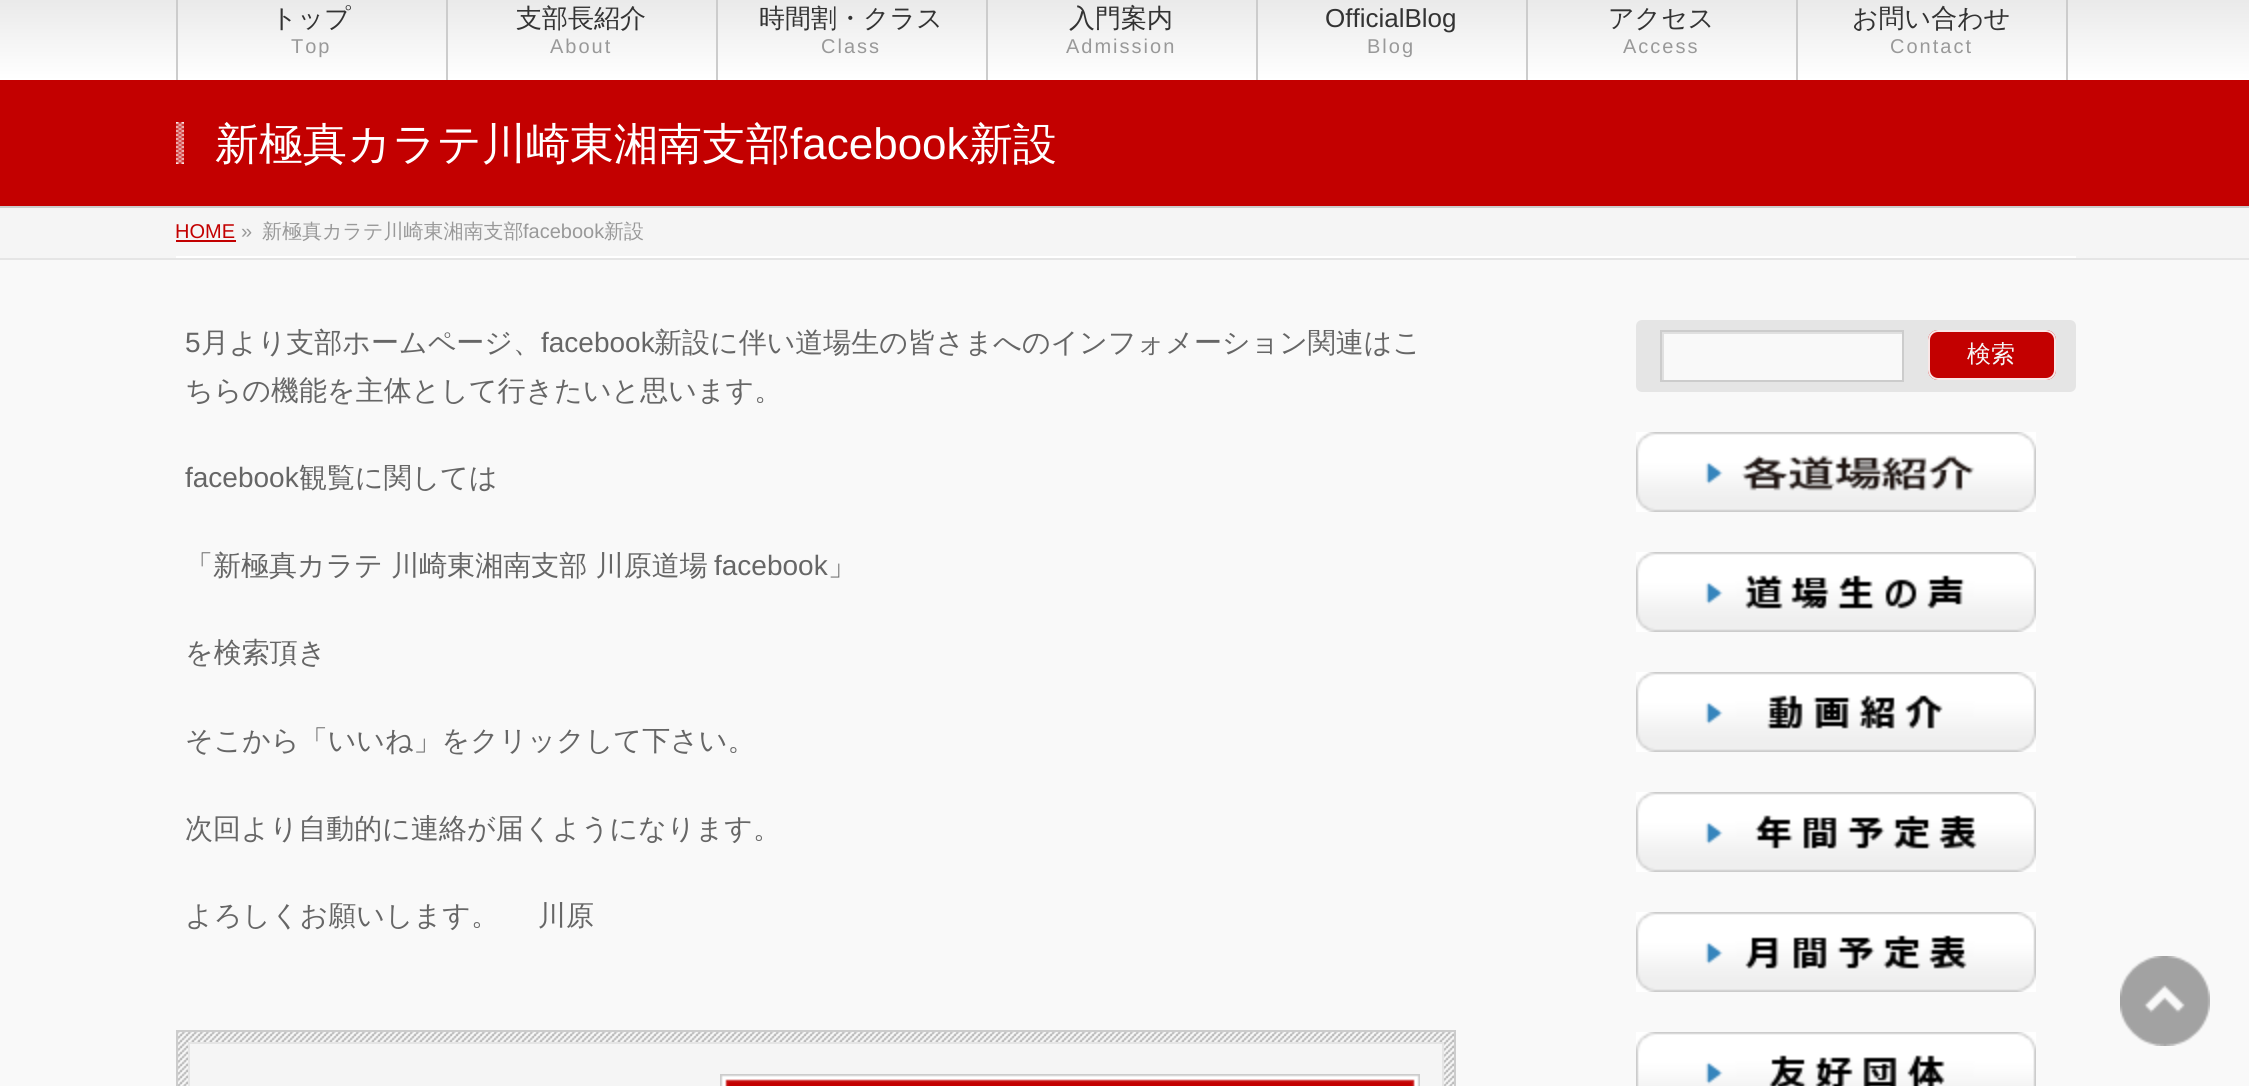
#include <cairo.h>
#include <math.h>
#include <stddef.h>

typedef struct { double x, y; const char *s; } line_t;
typedef struct { double x, y, w, h; unsigned color; } box_t;

static void ink(cairo_t *ctx, unsigned color) {
    cairo_set_source_rgb(ctx, (color >> 16) / 255.0, (color >> 8 & 255) / 255.0, (color & 255) / 255.0);
}

static void write_spaced(cairo_t *ctx, double x, double y, const char *s, double letter, double word) {
    cairo_move_to(ctx, x, y);
    while (*s) {
        char ch[5] = {0};
        int n = 0;
        do ch[n++] = *s++; while ((*s & 0xC0) == 0x80);
        cairo_show_text(ctx, ch);
        cairo_rel_move_to(ctx, letter + word * (*ch == ' '), 0);
    }
}

static void round_path(cairo_t *ctx, double x, double y, double w, double h, double r) {
    cairo_new_sub_path(ctx);
    cairo_arc(ctx, x + w - r, y + h - r, r, 0, M_PI / 2);
    cairo_arc(ctx, x + r, y + h - r, r, M_PI / 2, M_PI);
    cairo_arc(ctx, x + r, y + r, r, M_PI, 1.5 * M_PI);
    cairo_arc(ctx, x + w - r, y + r, r, 1.5 * M_PI, 2 * M_PI);
    cairo_close_path(ctx);
}

static void paste(cairo_t *ctx, const char *path, double x, double y, double w, double h) {
    cairo_surface_t *image = cairo_image_surface_create_from_png(path);
    cairo_save(ctx);
    cairo_set_source_surface(ctx, image, x, y);
    cairo_rectangle(ctx, x, y, w, h);
    cairo_fill(ctx);
    cairo_restore(ctx);
    cairo_surface_destroy(image);
}

int main(void) {
    cairo_surface_t *surface = cairo_image_surface_create(CAIRO_FORMAT_RGB24, 2249, 1086);
    cairo_t *ctx = cairo_create(surface);
    cairo_font_options_t *options = cairo_font_options_create();
    cairo_font_options_set_hint_metrics(options, CAIRO_HINT_METRICS_OFF);
    cairo_font_options_set_hint_style(options, CAIRO_HINT_STYLE_NONE);
    cairo_set_font_options(ctx, options);
    cairo_set_miter_limit(ctx, 4);
    cairo_pattern_t *gradient;
    ink(ctx, 0xF9F9F9);
    cairo_paint(ctx);
    gradient = cairo_pattern_create_linear(1125, -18, 1125, 80);
    cairo_pattern_add_color_stop_rgba(gradient, 0, 0.898, 0.898, 0.898, 1);
    cairo_pattern_add_color_stop_rgba(gradient, 1, 1, 1, 1, 1);
    cairo_set_source(ctx, gradient);
    cairo_pattern_destroy(gradient);
    cairo_rectangle(ctx, 0, 0, 2249, 80);
    cairo_fill(ctx);
    ink(ctx, 0xCCCCCC);
    cairo_rectangle(ctx, 176, 0, 2, 80);
    cairo_fill(ctx);
    cairo_rectangle(ctx, 446, 0, 2, 80);
    cairo_fill(ctx);
    cairo_select_font_face(ctx, "WenQuanYi Zen Hei Medium", CAIRO_FONT_SLANT_NORMAL, CAIRO_FONT_WEIGHT_NORMAL);
    cairo_set_font_size(ctx, 26);
    ink(ctx, 0x333333);
    cairo_move_to(ctx, 271, 27);
    cairo_show_text(ctx, "トップ");
    cairo_select_font_face(ctx, "Liberation Sans", CAIRO_FONT_SLANT_NORMAL, CAIRO_FONT_WEIGHT_NORMAL);
    cairo_set_font_size(ctx, 20);
    ink(ctx, 0x999999);
    write_spaced(ctx, 291, 53, "Top", 2, 0);
    ink(ctx, 0xCCCCCC);
    cairo_rectangle(ctx, 716, 0, 2, 80);
    cairo_fill(ctx);
    cairo_select_font_face(ctx, "WenQuanYi Zen Hei Medium", CAIRO_FONT_SLANT_NORMAL, CAIRO_FONT_WEIGHT_NORMAL);
    cairo_set_font_size(ctx, 26);
    ink(ctx, 0x333333);
    cairo_move_to(ctx, 516, 27);
    cairo_show_text(ctx, "支部長紹介");
    cairo_select_font_face(ctx, "Liberation Sans", CAIRO_FONT_SLANT_NORMAL, CAIRO_FONT_WEIGHT_NORMAL);
    cairo_set_font_size(ctx, 20);
    ink(ctx, 0x999999);
    write_spaced(ctx, 550, 53, "About", 2, 0);
    ink(ctx, 0xCCCCCC);
    cairo_rectangle(ctx, 986, 0, 2, 80);
    cairo_fill(ctx);
    cairo_select_font_face(ctx, "WenQuanYi Zen Hei Medium", CAIRO_FONT_SLANT_NORMAL, CAIRO_FONT_WEIGHT_NORMAL);
    cairo_set_font_size(ctx, 26);
    ink(ctx, 0x333333);
    cairo_move_to(ctx, 759, 27);
    cairo_show_text(ctx, "時間割・クラス");
    cairo_select_font_face(ctx, "Liberation Sans", CAIRO_FONT_SLANT_NORMAL, CAIRO_FONT_WEIGHT_NORMAL);
    cairo_set_font_size(ctx, 20);
    ink(ctx, 0x999999);
    write_spaced(ctx, 821, 53, "Class", 2, 0);
    ink(ctx, 0xCCCCCC);
    cairo_rectangle(ctx, 1256, 0, 2, 80);
    cairo_fill(ctx);
    cairo_select_font_face(ctx, "WenQuanYi Zen Hei Medium", CAIRO_FONT_SLANT_NORMAL, CAIRO_FONT_WEIGHT_NORMAL);
    cairo_set_font_size(ctx, 26);
    ink(ctx, 0x333333);
    cairo_move_to(ctx, 1069, 27);
    cairo_show_text(ctx, "入門案内");
    cairo_select_font_face(ctx, "Liberation Sans", CAIRO_FONT_SLANT_NORMAL, CAIRO_FONT_WEIGHT_NORMAL);
    cairo_set_font_size(ctx, 20);
    ink(ctx, 0x999999);
    write_spaced(ctx, 1066, 53, "Admission", 2, 0);
    ink(ctx, 0xCCCCCC);
    cairo_rectangle(ctx, 1526, 0, 2, 80);
    cairo_fill(ctx);
    cairo_set_font_size(ctx, 26);
    ink(ctx, 0x333333);
    cairo_move_to(ctx, 1325, 27);
    cairo_show_text(ctx, "OfficialBlog");
    cairo_set_font_size(ctx, 20);
    ink(ctx, 0x999999);
    write_spaced(ctx, 1367, 53, "Blog", 2, 0);
    ink(ctx, 0xCCCCCC);
    cairo_rectangle(ctx, 1796, 0, 2, 80);
    cairo_fill(ctx);
    cairo_select_font_face(ctx, "WenQuanYi Zen Hei Medium", CAIRO_FONT_SLANT_NORMAL, CAIRO_FONT_WEIGHT_NORMAL);
    cairo_set_font_size(ctx, 26);
    ink(ctx, 0x333333);
    cairo_move_to(ctx, 1608, 27);
    cairo_show_text(ctx, "アクセス");
    cairo_select_font_face(ctx, "Liberation Sans", CAIRO_FONT_SLANT_NORMAL, CAIRO_FONT_WEIGHT_NORMAL);
    cairo_set_font_size(ctx, 20);
    ink(ctx, 0x999999);
    write_spaced(ctx, 1623, 53, "Access", 2, 0);
    ink(ctx, 0xCCCCCC);
    cairo_rectangle(ctx, 2066, 0, 2, 80);
    cairo_fill(ctx);
    cairo_select_font_face(ctx, "WenQuanYi Zen Hei Medium", CAIRO_FONT_SLANT_NORMAL, CAIRO_FONT_WEIGHT_NORMAL);
    cairo_set_font_size(ctx, 26);
    ink(ctx, 0x333333);
    cairo_move_to(ctx, 1852, 27);
    cairo_show_text(ctx, "お問い合わせ");
    cairo_select_font_face(ctx, "Liberation Sans", CAIRO_FONT_SLANT_NORMAL, CAIRO_FONT_WEIGHT_NORMAL);
    cairo_set_font_size(ctx, 20);
    ink(ctx, 0x999999);
    write_spaced(ctx, 1890, 53, "Contact", 2, 0);
    ink(ctx, 0xC30000);
    cairo_rectangle(ctx, 0, 80, 2249, 126);
    cairo_fill(ctx);
    ink(ctx, 0xCCCCCC);
    cairo_rectangle(ctx, 0, 206, 2249, 2);
    cairo_fill(ctx);
    paste(ctx, "media/1.png", 176, 122, 8, 42);
    cairo_select_font_face(ctx, "WenQuanYi Zen Hei Medium", CAIRO_FONT_SLANT_NORMAL, CAIRO_FONT_WEIGHT_NORMAL);
    cairo_set_font_size(ctx, 44);
    ink(ctx, 0xFFFFFF);
    cairo_move_to(ctx, 215, 159);
    cairo_show_text(ctx, "新極真カラテ川崎東湘南支部");
    cairo_select_font_face(ctx, "Liberation Sans", CAIRO_FONT_SLANT_NORMAL, CAIRO_FONT_WEIGHT_NORMAL);
    cairo_move_to(ctx, 790, 159);
    cairo_show_text(ctx, "facebook");
    cairo_select_font_face(ctx, "WenQuanYi Zen Hei Medium", CAIRO_FONT_SLANT_NORMAL, CAIRO_FONT_WEIGHT_NORMAL);
    cairo_move_to(ctx, 969, 159);
    cairo_show_text(ctx, "新設");
    {
        static const box_t items[] = {
            {0, 208, 2249, 50, 0xF5F5F5},
            {0, 258, 2249, 2, 0xE5E5E5},
            {176, 256, 1900, 2, 0xFFFFFF},
        };
        for (size_t i = 0; i < sizeof items / sizeof *items; i++) {
            ink(ctx, items[i].color);
            cairo_rectangle(ctx, items[i].x, items[i].y, items[i].w, items[i].h);
            cairo_fill(ctx);
        }
    }
    cairo_select_font_face(ctx, "Liberation Sans", CAIRO_FONT_SLANT_NORMAL, CAIRO_FONT_WEIGHT_NORMAL);
    cairo_set_font_size(ctx, 20);
    ink(ctx, 0xC30000);
    cairo_move_to(ctx, 175, 238);
    cairo_show_text(ctx, "HOME");
    cairo_rectangle(ctx, 176, 240, 60, 2);
    cairo_fill(ctx);
    ink(ctx, 0x999999);
    cairo_move_to(ctx, 241, 238);
    cairo_show_text(ctx, "»");
    cairo_select_font_face(ctx, "WenQuanYi Zen Hei Medium", CAIRO_FONT_SLANT_NORMAL, CAIRO_FONT_WEIGHT_NORMAL);
    cairo_move_to(ctx, 262, 238);
    cairo_show_text(ctx, "新極真カラテ川崎東湘南支部");
    cairo_select_font_face(ctx, "Liberation Sans", CAIRO_FONT_SLANT_NORMAL, CAIRO_FONT_WEIGHT_NORMAL);
    cairo_move_to(ctx, 523, 238);
    cairo_show_text(ctx, "facebook");
    cairo_select_font_face(ctx, "WenQuanYi Zen Hei Medium", CAIRO_FONT_SLANT_NORMAL, CAIRO_FONT_WEIGHT_NORMAL);
    cairo_move_to(ctx, 604, 238);
    cairo_show_text(ctx, "新設");
    cairo_select_font_face(ctx, "Liberation Sans", CAIRO_FONT_SLANT_NORMAL, CAIRO_FONT_WEIGHT_NORMAL);
    cairo_set_font_size(ctx, 28);
    ink(ctx, 0x666666);
    cairo_move_to(ctx, 185, 352);
    cairo_show_text(ctx, "5");
    cairo_select_font_face(ctx, "WenQuanYi Zen Hei Medium", CAIRO_FONT_SLANT_NORMAL, CAIRO_FONT_WEIGHT_NORMAL);
    cairo_move_to(ctx, 201, 352);
    cairo_show_text(ctx, "月より支部ホームページ、");
    cairo_select_font_face(ctx, "Liberation Sans", CAIRO_FONT_SLANT_NORMAL, CAIRO_FONT_WEIGHT_NORMAL);
    cairo_move_to(ctx, 541, 352);
    cairo_show_text(ctx, "facebook");
    cairo_select_font_face(ctx, "WenQuanYi Zen Hei Medium", CAIRO_FONT_SLANT_NORMAL, CAIRO_FONT_WEIGHT_NORMAL);
    cairo_move_to(ctx, 654, 352);
    cairo_show_text(ctx, "新設に伴い道場生の皆さまへのインフォメーション関連はこ");
    cairo_move_to(ctx, 185, 400);
    cairo_show_text(ctx, "ちらの機能を主体として行きたいと思います。");
    cairo_select_font_face(ctx, "Liberation Sans", CAIRO_FONT_SLANT_NORMAL, CAIRO_FONT_WEIGHT_NORMAL);
    cairo_move_to(ctx, 185, 487);
    cairo_show_text(ctx, "facebook");
    cairo_select_font_face(ctx, "WenQuanYi Zen Hei Medium", CAIRO_FONT_SLANT_NORMAL, CAIRO_FONT_WEIGHT_NORMAL);
    cairo_move_to(ctx, 299, 487);
    cairo_show_text(ctx, "観覧に関しては");
    cairo_move_to(ctx, 185, 575);
    cairo_show_text(ctx, "「新極真カラテ 川崎東湘南支部 川原道場");
    cairo_select_font_face(ctx, "Liberation Sans", CAIRO_FONT_SLANT_NORMAL, CAIRO_FONT_WEIGHT_NORMAL);
    cairo_move_to(ctx, 714, 575);
    cairo_show_text(ctx, "facebook");
    cairo_select_font_face(ctx, "WenQuanYi Zen Hei Medium", CAIRO_FONT_SLANT_NORMAL, CAIRO_FONT_WEIGHT_NORMAL);
    {
        static const line_t items[] = {
            {828, 575, "」"},
            {185, 662, "を検索頂き"},
            {185, 750, "そこから「いいね」をクリックして下さい。"},
            {185, 838, "次回より自動的に連絡が届くようになります。"},
            {185, 925, "よろしくお願いします。"},
            {538, 925, "川原"},
        };
        for (size_t i = 0; i < sizeof items / sizeof *items; i++) {
            cairo_move_to(ctx, items[i].x, items[i].y);
            cairo_show_text(ctx, items[i].s);
        }
    }
    paste(ctx, "media/2.png", 178, 1032, 1276, 54);
    cairo_rectangle(ctx, 177, 1031, 1278, 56);
    ink(ctx, 0xCCCCCC);
    cairo_stroke(ctx);
    ink(ctx, 0xF5F5F5);
    cairo_rectangle(ctx, 189, 1043, 1254, 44);
    cairo_fill_preserve(ctx);
    ink(ctx, 0xE5E5E5);
    cairo_stroke(ctx);
    ink(ctx, 0xC30000);
    cairo_rectangle(ctx, 725, 1079, 690, 7);
    cairo_fill(ctx);
    paste(ctx, "media/3.png", 720, 1074, 700, 12);
    ink(ctx, 0xE5E5E5);
    round_path(ctx, 1636, 320, 440, 72, 6);
    cairo_fill(ctx);
    ink(ctx, 0xF9F9F9);
    cairo_rectangle(ctx, 1664, 334, 238, 46);
    cairo_fill(ctx);
    cairo_save(ctx);
    cairo_rectangle(ctx, 1662, 332, 240, 48);
    cairo_clip(ctx);
    ink(ctx, 0xE0E0E0);
    cairo_set_fill_rule(ctx, CAIRO_FILL_RULE_EVEN_ODD);
    cairo_new_path(ctx);
    cairo_move_to(ctx, 1642, 320);
    cairo_curve_to(ctx, 1639, 320, 1636, 323, 1636, 326);
    cairo_line_to(ctx, 1636, 386);
    cairo_curve_to(ctx, 1636, 389, 1639, 392, 1642, 392);
    cairo_line_to(ctx, 2070, 392);
    cairo_curve_to(ctx, 2073, 392, 2076, 389, 2076, 386);
    cairo_line_to(ctx, 2076, 326);
    cairo_curve_to(ctx, 2076, 323, 2073, 320, 2070, 320);
    cairo_close_path(ctx);
    cairo_move_to(ctx, 1664, 334);
    cairo_line_to(ctx, 1664, 382);
    cairo_line_to(ctx, 1904, 382);
    cairo_line_to(ctx, 1904, 334);
    cairo_close_path(ctx);
    cairo_fill(ctx);
    cairo_restore(ctx);
    cairo_rectangle(ctx, 1661, 331, 242, 50);
    ink(ctx, 0xCCCCCC);
    cairo_stroke(ctx);
    ink(ctx, 0xC30000);
    round_path(ctx, 1928, 330, 128, 50, 10);
    cairo_fill(ctx);
    round_path(ctx, 1929, 331, 126, 48, 9);
    cairo_set_source_rgba(ctx, 1, 1, 1, 0.9);
    cairo_stroke(ctx);
    cairo_set_font_size(ctx, 24);
    ink(ctx, 0xF5F5F5);
    cairo_move_to(ctx, 1967, 362);
    cairo_show_text(ctx, "検索");
    paste(ctx, "media/4.png", 1636, 432, 400, 80);
    paste(ctx, "media/5.png", 1636, 552, 400, 80);
    paste(ctx, "media/6.png", 1636, 672, 400, 80);
    paste(ctx, "media/7.png", 1636, 792, 400, 80);
    paste(ctx, "media/8.png", 1636, 912, 400, 80);
    paste(ctx, "media/9.png", 1636, 1032, 400, 54);
    paste(ctx, "media/10.png", 2120, 956, 90, 90);
    cairo_surface_write_to_png(surface, "image.png");
    cairo_font_options_destroy(options);
    cairo_destroy(ctx);
    cairo_surface_destroy(surface);
    return 0;
}
